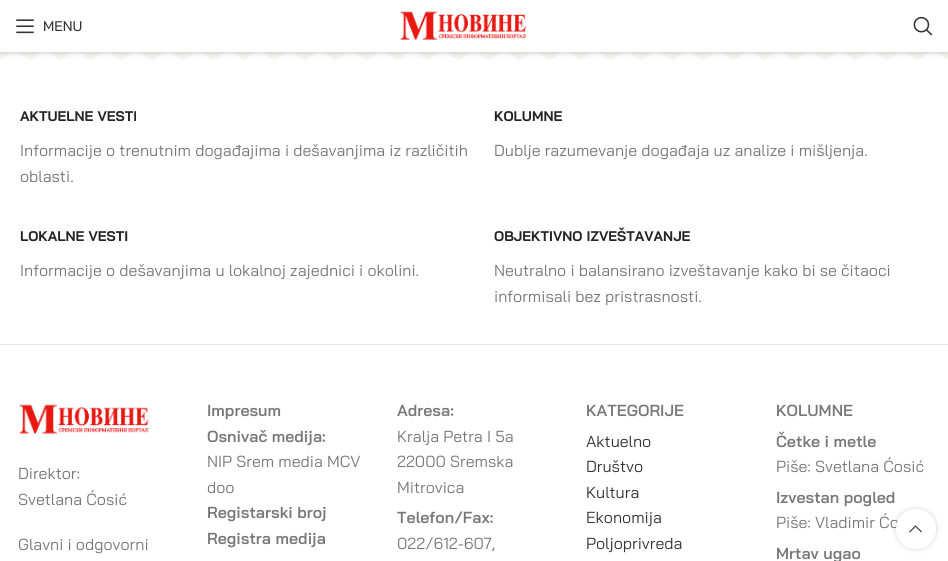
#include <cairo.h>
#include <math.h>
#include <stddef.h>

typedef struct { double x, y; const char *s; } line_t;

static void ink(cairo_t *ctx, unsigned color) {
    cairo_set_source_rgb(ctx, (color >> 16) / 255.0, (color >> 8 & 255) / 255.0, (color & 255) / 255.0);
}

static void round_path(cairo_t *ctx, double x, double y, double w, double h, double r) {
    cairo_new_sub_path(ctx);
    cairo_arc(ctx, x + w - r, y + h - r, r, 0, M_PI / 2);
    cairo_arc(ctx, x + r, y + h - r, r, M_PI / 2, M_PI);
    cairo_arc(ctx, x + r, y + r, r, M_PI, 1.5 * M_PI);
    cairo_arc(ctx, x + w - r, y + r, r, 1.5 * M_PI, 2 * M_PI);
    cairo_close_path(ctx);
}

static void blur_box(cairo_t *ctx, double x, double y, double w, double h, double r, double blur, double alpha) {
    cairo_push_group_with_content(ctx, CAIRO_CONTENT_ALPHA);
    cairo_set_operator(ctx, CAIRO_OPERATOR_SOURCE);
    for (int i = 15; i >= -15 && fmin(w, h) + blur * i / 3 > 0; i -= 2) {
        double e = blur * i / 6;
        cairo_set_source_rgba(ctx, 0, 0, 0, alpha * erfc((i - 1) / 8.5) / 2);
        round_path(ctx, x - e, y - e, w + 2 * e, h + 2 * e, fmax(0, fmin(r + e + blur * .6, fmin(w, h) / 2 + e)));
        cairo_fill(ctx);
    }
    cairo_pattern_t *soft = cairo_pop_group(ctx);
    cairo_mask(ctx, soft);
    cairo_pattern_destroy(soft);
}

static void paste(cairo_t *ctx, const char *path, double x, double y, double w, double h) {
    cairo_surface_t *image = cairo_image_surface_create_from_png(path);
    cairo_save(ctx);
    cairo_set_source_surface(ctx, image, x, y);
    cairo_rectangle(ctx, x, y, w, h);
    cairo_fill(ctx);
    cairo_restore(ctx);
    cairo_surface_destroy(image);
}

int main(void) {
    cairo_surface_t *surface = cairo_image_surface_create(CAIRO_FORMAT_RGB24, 948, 561);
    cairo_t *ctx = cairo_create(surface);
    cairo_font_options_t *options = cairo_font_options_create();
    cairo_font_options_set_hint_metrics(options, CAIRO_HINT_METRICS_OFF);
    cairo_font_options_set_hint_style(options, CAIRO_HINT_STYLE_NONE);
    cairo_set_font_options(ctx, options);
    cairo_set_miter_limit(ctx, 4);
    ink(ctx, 0xFFFFFF);
    cairo_paint(ctx);
    paste(ctx, "media/4.png", 0, 52, 948, 9);
    ink(ctx, 0x000000);
    blur_box(ctx, 0, 1, 948, 52, 0, 1.5, 0.1);
    blur_box(ctx, 0, 1, 948, 52, 0, 4, 0.1);
    ink(ctx, 0xFFFFFF);
    cairo_rectangle(ctx, 0, 0, 948, 52);
    cairo_fill(ctx);
    paste(ctx, "media/1.png", 16, 19, 18, 15);
    cairo_select_font_face(ctx, "Bai Jamjuree Medium", CAIRO_FONT_SLANT_NORMAL, CAIRO_FONT_WEIGHT_NORMAL);
    cairo_set_font_size(ctx, 14);
    ink(ctx, 0x333333);
    cairo_move_to(ctx, 43, 31);
    cairo_show_text(ctx, "MENU");
    paste(ctx, "media/2.png", 400, 11, 126, 29);
    paste(ctx, "media/3.png", 913, 16, 20, 20);
    ink(ctx, 0xE6E6E6);
    cairo_rectangle(ctx, 0, 344, 948, 1);
    cairo_fill(ctx);
    cairo_select_font_face(ctx, "Bai Jamjuree", CAIRO_FONT_SLANT_NORMAL, CAIRO_FONT_WEIGHT_BOLD);
    ink(ctx, 0x242424);
    cairo_move_to(ctx, 20, 121);
    cairo_show_text(ctx, "AKTUELNE VESTI");
    cairo_select_font_face(ctx, "Bai Jamjuree", CAIRO_FONT_SLANT_NORMAL, CAIRO_FONT_WEIGHT_NORMAL);
    cairo_set_font_size(ctx, 16);
    ink(ctx, 0x777777);
    cairo_move_to(ctx, 20, 156);
    cairo_show_text(ctx, "Informacije o trenutnim događajima i dešavanjima iz različitih");
    cairo_move_to(ctx, 20, 182);
    cairo_show_text(ctx, "oblasti.");
    cairo_select_font_face(ctx, "Bai Jamjuree", CAIRO_FONT_SLANT_NORMAL, CAIRO_FONT_WEIGHT_BOLD);
    cairo_set_font_size(ctx, 14);
    ink(ctx, 0x242424);
    cairo_move_to(ctx, 494, 121);
    cairo_show_text(ctx, "KOLUMNE");
    cairo_select_font_face(ctx, "Bai Jamjuree", CAIRO_FONT_SLANT_NORMAL, CAIRO_FONT_WEIGHT_NORMAL);
    cairo_set_font_size(ctx, 16);
    ink(ctx, 0x777777);
    cairo_move_to(ctx, 494, 156);
    cairo_show_text(ctx, "Dublje razumevanje događaja uz analize i mišljenja.");
    cairo_select_font_face(ctx, "Bai Jamjuree", CAIRO_FONT_SLANT_NORMAL, CAIRO_FONT_WEIGHT_BOLD);
    cairo_set_font_size(ctx, 14);
    ink(ctx, 0x242424);
    cairo_move_to(ctx, 20, 241);
    cairo_show_text(ctx, "LOKALNE VESTI");
    cairo_select_font_face(ctx, "Bai Jamjuree", CAIRO_FONT_SLANT_NORMAL, CAIRO_FONT_WEIGHT_NORMAL);
    cairo_set_font_size(ctx, 16);
    ink(ctx, 0x777777);
    cairo_move_to(ctx, 20, 276);
    cairo_show_text(ctx, "Informacije o dešavanjima u lokalnoj zajednici i okolini.");
    cairo_select_font_face(ctx, "Bai Jamjuree", CAIRO_FONT_SLANT_NORMAL, CAIRO_FONT_WEIGHT_BOLD);
    cairo_set_font_size(ctx, 14);
    ink(ctx, 0x242424);
    cairo_move_to(ctx, 494, 241);
    cairo_show_text(ctx, "OBJEKTIVNO IZVEŠTAVANJE");
    cairo_select_font_face(ctx, "Bai Jamjuree", CAIRO_FONT_SLANT_NORMAL, CAIRO_FONT_WEIGHT_NORMAL);
    cairo_set_font_size(ctx, 16);
    ink(ctx, 0x777777);
    cairo_move_to(ctx, 494, 276);
    cairo_show_text(ctx, "Neutralno i balansirano izveštavanje kako bi se čitaoci");
    cairo_move_to(ctx, 494, 302);
    cairo_show_text(ctx, "informisali bez pristrasnosti.");
    paste(ctx, "media/5.png", 19, 404, 130, 30);
    {
        static const line_t items[] = {
            {18, 479, "Direktor:"},
            {18, 505, "Svetlana Ćosić"},
            {18, 550, "Glavni i odgovorni"},
        };
        for (size_t i = 0; i < sizeof items / sizeof *items; i++) {
            cairo_move_to(ctx, items[i].x, items[i].y);
            cairo_show_text(ctx, items[i].s);
        }
    }
    cairo_select_font_face(ctx, "Bai Jamjuree SemiBold", CAIRO_FONT_SLANT_NORMAL, CAIRO_FONT_WEIGHT_NORMAL);
    cairo_move_to(ctx, 207, 416);
    cairo_show_text(ctx, "Impresum");
    cairo_move_to(ctx, 207, 442);
    cairo_show_text(ctx, "Osnivač medija:");
    cairo_select_font_face(ctx, "Bai Jamjuree", CAIRO_FONT_SLANT_NORMAL, CAIRO_FONT_WEIGHT_NORMAL);
    cairo_move_to(ctx, 207, 467);
    cairo_show_text(ctx, "NIP Srem media MCV");
    cairo_move_to(ctx, 207, 493);
    cairo_show_text(ctx, "doo");
    cairo_select_font_face(ctx, "Bai Jamjuree SemiBold", CAIRO_FONT_SLANT_NORMAL, CAIRO_FONT_WEIGHT_NORMAL);
    {
        static const line_t items[] = {
            {207, 518, "Registarski broj"},
            {207, 544, "Registra medija"},
            {397, 416, "Adresa:"},
        };
        for (size_t i = 0; i < sizeof items / sizeof *items; i++) {
            cairo_move_to(ctx, items[i].x, items[i].y);
            cairo_show_text(ctx, items[i].s);
        }
    }
    cairo_select_font_face(ctx, "Bai Jamjuree", CAIRO_FONT_SLANT_NORMAL, CAIRO_FONT_WEIGHT_NORMAL);
    {
        static const line_t items[] = {
            {397, 442, "Kralja Petra I 5a"},
            {397, 467, "22000 Sremska"},
            {397, 493, "Mitrovica"},
        };
        for (size_t i = 0; i < sizeof items / sizeof *items; i++) {
            cairo_move_to(ctx, items[i].x, items[i].y);
            cairo_show_text(ctx, items[i].s);
        }
    }
    cairo_select_font_face(ctx, "Bai Jamjuree SemiBold", CAIRO_FONT_SLANT_NORMAL, CAIRO_FONT_WEIGHT_NORMAL);
    cairo_move_to(ctx, 397, 523);
    cairo_show_text(ctx, "Telefon/Fax:");
    cairo_select_font_face(ctx, "Bai Jamjuree", CAIRO_FONT_SLANT_NORMAL, CAIRO_FONT_WEIGHT_NORMAL);
    cairo_move_to(ctx, 397, 549);
    cairo_show_text(ctx, "022/612-607,");
    cairo_select_font_face(ctx, "Bai Jamjuree SemiBold", CAIRO_FONT_SLANT_NORMAL, CAIRO_FONT_WEIGHT_NORMAL);
    cairo_move_to(ctx, 586, 416);
    cairo_show_text(ctx, "KATEGORIJE");
    cairo_select_font_face(ctx, "Bai Jamjuree", CAIRO_FONT_SLANT_NORMAL, CAIRO_FONT_WEIGHT_NORMAL);
    ink(ctx, 0x333333);
    {
        static const line_t items[] = {
            {586, 447, "Aktuelno"},
            {586, 472, "Društvo"},
            {586, 498, "Kultura"},
            {586, 523, "Ekonomija"},
            {586, 549, "Poljoprivreda"},
        };
        for (size_t i = 0; i < sizeof items / sizeof *items; i++) {
            cairo_move_to(ctx, items[i].x, items[i].y);
            cairo_show_text(ctx, items[i].s);
        }
    }
    cairo_select_font_face(ctx, "Bai Jamjuree SemiBold", CAIRO_FONT_SLANT_NORMAL, CAIRO_FONT_WEIGHT_NORMAL);
    ink(ctx, 0x777777);
    cairo_move_to(ctx, 776, 416);
    cairo_show_text(ctx, "KOLUMNE");
    cairo_move_to(ctx, 776, 447);
    cairo_show_text(ctx, "Četke i metle");
    cairo_select_font_face(ctx, "Bai Jamjuree", CAIRO_FONT_SLANT_NORMAL, CAIRO_FONT_WEIGHT_NORMAL);
    cairo_move_to(ctx, 776, 472);
    cairo_show_text(ctx, "Piše: Svetlana Ćosić");
    cairo_select_font_face(ctx, "Bai Jamjuree SemiBold", CAIRO_FONT_SLANT_NORMAL, CAIRO_FONT_WEIGHT_NORMAL);
    cairo_move_to(ctx, 776, 503);
    cairo_show_text(ctx, "Izvestan pogled");
    cairo_select_font_face(ctx, "Bai Jamjuree", CAIRO_FONT_SLANT_NORMAL, CAIRO_FONT_WEIGHT_NORMAL);
    cairo_move_to(ctx, 776, 528);
    cairo_show_text(ctx, "Piše: Vladimir Ćo");
    cairo_select_font_face(ctx, "Bai Jamjuree SemiBold", CAIRO_FONT_SLANT_NORMAL, CAIRO_FONT_WEIGHT_NORMAL);
    cairo_move_to(ctx, 776, 559);
    cairo_show_text(ctx, "Mrtav ugao");
    cairo_save(ctx);
    cairo_set_fill_rule(ctx, CAIRO_FILL_RULE_EVEN_ODD);
    cairo_new_path(ctx);
    cairo_move_to(ctx, 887, 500);
    cairo_line_to(ctx, 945, 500);
    cairo_line_to(ctx, 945, 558);
    cairo_line_to(ctx, 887, 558);
    cairo_close_path(ctx);
    cairo_move_to(ctx, 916, 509);
    cairo_curve_to(ctx, 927, 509, 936, 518, 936, 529);
    cairo_curve_to(ctx, 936, 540, 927, 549, 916, 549);
    cairo_curve_to(ctx, 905, 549, 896, 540, 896, 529);
    cairo_curve_to(ctx, 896, 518, 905, 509, 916, 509);
    cairo_close_path(ctx);
    cairo_clip(ctx);
    ink(ctx, 0x000000);
    blur_box(ctx, 896, 509, 40, 40, 20, 2.5, 0.17);
    cairo_restore(ctx);
    cairo_set_source_rgba(ctx, 1, 1, 1, 0.9);
    cairo_arc(ctx, 916, 529, 20, 0, 2 * M_PI);
    cairo_fill(ctx);
    paste(ctx, "media/6.png", 909, 525, 13, 8);
    cairo_surface_write_to_png(surface, "image.png");
    cairo_font_options_destroy(options);
    cairo_destroy(ctx);
    cairo_surface_destroy(surface);
    return 0;
}
